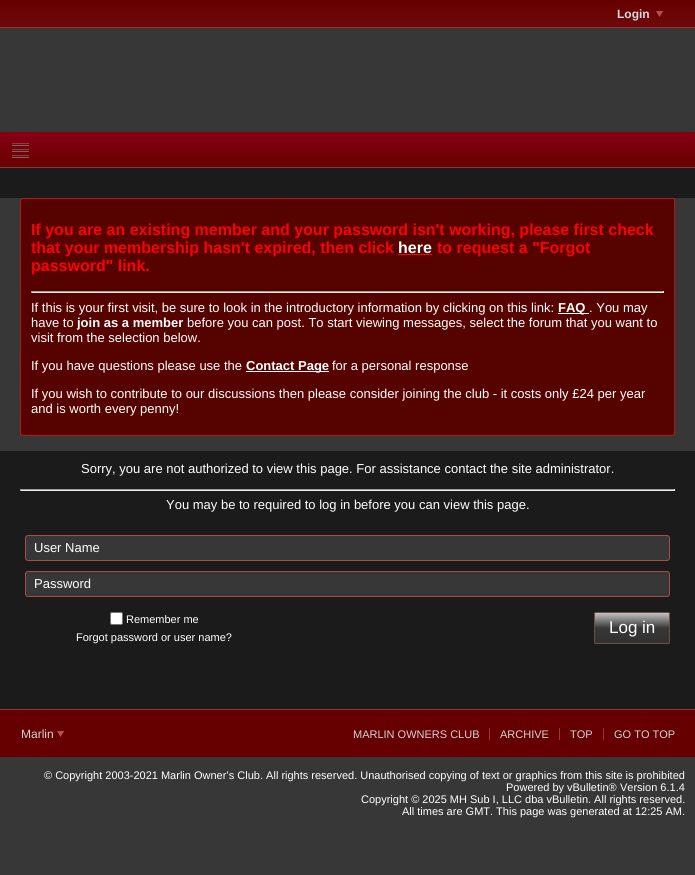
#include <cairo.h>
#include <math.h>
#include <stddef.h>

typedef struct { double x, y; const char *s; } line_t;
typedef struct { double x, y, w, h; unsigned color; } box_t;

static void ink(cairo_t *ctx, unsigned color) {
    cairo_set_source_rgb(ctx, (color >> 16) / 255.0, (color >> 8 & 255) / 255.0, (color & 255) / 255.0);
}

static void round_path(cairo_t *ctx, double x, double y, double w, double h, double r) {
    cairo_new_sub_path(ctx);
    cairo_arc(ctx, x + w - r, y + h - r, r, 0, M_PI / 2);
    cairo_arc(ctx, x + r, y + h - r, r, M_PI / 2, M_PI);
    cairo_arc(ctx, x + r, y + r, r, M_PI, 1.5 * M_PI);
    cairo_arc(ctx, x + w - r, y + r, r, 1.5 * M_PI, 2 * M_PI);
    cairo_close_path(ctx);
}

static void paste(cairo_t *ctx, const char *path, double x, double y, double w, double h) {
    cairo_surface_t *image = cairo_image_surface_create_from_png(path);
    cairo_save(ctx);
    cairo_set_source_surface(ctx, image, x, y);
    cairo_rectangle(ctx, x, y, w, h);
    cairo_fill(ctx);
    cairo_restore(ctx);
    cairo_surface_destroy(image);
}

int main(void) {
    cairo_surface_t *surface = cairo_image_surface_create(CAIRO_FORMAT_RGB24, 695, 875);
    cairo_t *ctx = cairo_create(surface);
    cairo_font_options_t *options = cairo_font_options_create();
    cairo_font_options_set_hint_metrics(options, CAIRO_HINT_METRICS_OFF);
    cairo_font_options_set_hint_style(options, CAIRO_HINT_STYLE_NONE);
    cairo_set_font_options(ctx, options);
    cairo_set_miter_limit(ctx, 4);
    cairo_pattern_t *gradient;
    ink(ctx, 0x373737);
    cairo_paint(ctx);
    gradient = cairo_pattern_create_linear(348, 0, 348, 27);
    cairo_pattern_add_color_stop_rgba(gradient, 0, 0.4, 0, 0, 1);
    cairo_pattern_add_color_stop_rgba(gradient, 1, 0.439, 0.035, 0.043, 1);
    cairo_set_source(ctx, gradient);
    cairo_pattern_destroy(gradient);
    cairo_rectangle(ctx, 0, 0, 695, 27);
    cairo_fill(ctx);
    ink(ctx, 0x953130);
    cairo_rectangle(ctx, 0, 27, 695, 1);
    cairo_fill(ctx);
    cairo_select_font_face(ctx, "Liberation Sans", CAIRO_FONT_SLANT_NORMAL, CAIRO_FONT_WEIGHT_BOLD);
    cairo_set_font_size(ctx, 12);
    ink(ctx, 0xD6DBDE);
    cairo_move_to(ctx, 617, 18);
    cairo_show_text(ctx, "Login");
    paste(ctx, "media/1.png", 656, 11, 7, 6);
    gradient = cairo_pattern_create_linear(348, 132, 348, 167);
    cairo_pattern_add_color_stop_rgba(gradient, 0, 0.529, 0, 0.075, 1);
    cairo_pattern_add_color_stop_rgba(gradient, 1, 0.4, 0, 0, 1);
    cairo_set_source(ctx, gradient);
    cairo_pattern_destroy(gradient);
    cairo_rectangle(ctx, 0, 132, 695, 35);
    cairo_fill(ctx);
    ink(ctx, 0x963431);
    cairo_rectangle(ctx, 0, 167, 695, 1);
    cairo_fill(ctx);
    paste(ctx, "media/2.png", 12, 143, 17, 15);
    ink(ctx, 0x1B1B1B);
    cairo_rectangle(ctx, 0, 168, 695, 30);
    cairo_fill(ctx);
    ink(ctx, 0x560300);
    round_path(ctx, 20.5, 198.5, 654, 237, 2.5);
    cairo_fill_preserve(ctx);
    ink(ctx, 0xAF1E15);
    cairo_set_line_width(ctx, 1);
    cairo_stroke(ctx);
    cairo_set_font_size(ctx, 16);
    ink(ctx, 0xFF0000);
    cairo_move_to(ctx, 31, 235);
    cairo_show_text(ctx, "If you are an existing member and your password isn't working, please first check");
    cairo_move_to(ctx, 31, 253);
    cairo_show_text(ctx, "that your membership hasn't expired, then click");
    cairo_rectangle(ctx, 398, 254, 34, 1);
    cairo_fill(ctx);
    ink(ctx, 0xFFFFFF);
    cairo_move_to(ctx, 398, 253);
    cairo_show_text(ctx, "here");
    ink(ctx, 0xFF0000);
    cairo_move_to(ctx, 437, 253);
    cairo_show_text(ctx, "to request a \"Forgot");
    cairo_move_to(ctx, 31, 271);
    cairo_show_text(ctx, "password\" link.");
    {
        static const box_t items[] = {
            {31, 291, 633, 1, 0x9F9F9F},
            {663, 291, 1, 2, 0xEEEEEE},
            {31, 292, 633, 1, 0xEEEEEE},
            {31, 291, 1, 2, 0x9F9F9F},
        };
        for (size_t i = 0; i < sizeof items / sizeof *items; i++) {
            ink(ctx, items[i].color);
            cairo_rectangle(ctx, items[i].x, items[i].y, items[i].w, items[i].h);
            cairo_fill(ctx);
        }
    }
    cairo_select_font_face(ctx, "Liberation Sans", CAIRO_FONT_SLANT_NORMAL, CAIRO_FONT_WEIGHT_NORMAL);
    cairo_set_font_size(ctx, 13);
    ink(ctx, 0xFFFFFF);
    cairo_move_to(ctx, 31, 312);
    cairo_show_text(ctx, "If this is your first visit, be sure to look in the introductory information by clicking on this link:");
    cairo_rectangle(ctx, 558, 313, 31, 1);
    cairo_fill(ctx);
    cairo_select_font_face(ctx, "Liberation Sans", CAIRO_FONT_SLANT_NORMAL, CAIRO_FONT_WEIGHT_BOLD);
    cairo_move_to(ctx, 558, 312);
    cairo_show_text(ctx, "FAQ");
    cairo_select_font_face(ctx, "Liberation Sans", CAIRO_FONT_SLANT_NORMAL, CAIRO_FONT_WEIGHT_NORMAL);
    cairo_move_to(ctx, 589, 312);
    cairo_show_text(ctx, ". You may");
    cairo_move_to(ctx, 31, 327);
    cairo_show_text(ctx, "have to");
    cairo_select_font_face(ctx, "Liberation Sans", CAIRO_FONT_SLANT_NORMAL, CAIRO_FONT_WEIGHT_BOLD);
    cairo_move_to(ctx, 77, 327);
    cairo_show_text(ctx, "join as a member");
    cairo_select_font_face(ctx, "Liberation Sans", CAIRO_FONT_SLANT_NORMAL, CAIRO_FONT_WEIGHT_NORMAL);
    {
        static const line_t items[] = {
            {187, 327, "before you can post. To start viewing messages, select the forum that you want to"},
            {31, 342, "visit from the selection below."},
            {31, 370, "If you have questions please use the"},
        };
        for (size_t i = 0; i < sizeof items / sizeof *items; i++) {
            cairo_move_to(ctx, items[i].x, items[i].y);
            cairo_show_text(ctx, items[i].s);
        }
    }
    cairo_rectangle(ctx, 246, 371, 83, 1);
    cairo_fill(ctx);
    cairo_select_font_face(ctx, "Liberation Sans", CAIRO_FONT_SLANT_NORMAL, CAIRO_FONT_WEIGHT_BOLD);
    cairo_move_to(ctx, 246, 370);
    cairo_show_text(ctx, "Contact Page");
    cairo_select_font_face(ctx, "Liberation Sans", CAIRO_FONT_SLANT_NORMAL, CAIRO_FONT_WEIGHT_NORMAL);
    {
        static const line_t items[] = {
            {332, 370, "for a personal response"},
            {31, 398, "If you wish to contribute to our discussions then please consider joining the club - it costs only £24 per year"},
            {31, 413, "and is worth every penny!"},
        };
        for (size_t i = 0; i < sizeof items / sizeof *items; i++) {
            cairo_move_to(ctx, items[i].x, items[i].y);
            cairo_show_text(ctx, items[i].s);
        }
    }
    ink(ctx, 0x1B1B1B);
    cairo_rectangle(ctx, 0, 451, 695, 258);
    cairo_fill(ctx);
    ink(ctx, 0xFFFFFF);
    cairo_move_to(ctx, 81, 473);
    cairo_show_text(ctx, "Sorry, you are not authorized to view this page. For assistance contact the site administrator.");
    {
        static const box_t items[] = {
            {20, 489, 655, 1, 0x9F9F9F},
            {674, 489, 1, 2, 0xEEEEEE},
            {20, 490, 655, 1, 0xEEEEEE},
            {20, 489, 1, 2, 0x9F9F9F},
        };
        for (size_t i = 0; i < sizeof items / sizeof *items; i++) {
            ink(ctx, items[i].color);
            cairo_rectangle(ctx, items[i].x, items[i].y, items[i].w, items[i].h);
            cairo_fill(ctx);
        }
    }
    ink(ctx, 0xFFFFFF);
    cairo_move_to(ctx, 166, 509);
    cairo_show_text(ctx, "You may be to required to log in before you can view this page.");
    ink(ctx, 0x373737);
    round_path(ctx, 25.5, 535.5, 644, 25, 2.5);
    cairo_fill_preserve(ctx);
    ink(ctx, 0xA84A45);
    cairo_stroke(ctx);
    ink(ctx, 0xFFFFFF);
    cairo_move_to(ctx, 34, 552);
    cairo_show_text(ctx, "User Name");
    ink(ctx, 0x373737);
    round_path(ctx, 25.5, 571.5, 644, 25, 2.5);
    cairo_fill_preserve(ctx);
    ink(ctx, 0xA84A45);
    cairo_stroke(ctx);
    ink(ctx, 0xFFFFFF);
    cairo_move_to(ctx, 34, 588);
    cairo_show_text(ctx, "Password");
    round_path(ctx, 110.5, 612.5, 12, 12, 1.5);
    cairo_fill_preserve(ctx);
    ink(ctx, 0x767676);
    cairo_stroke(ctx);
    cairo_set_font_size(ctx, 11);
    ink(ctx, 0xFFFFFF);
    cairo_move_to(ctx, 126, 623);
    cairo_show_text(ctx, "Remember me");
    ink(ctx, 0x373737);
    round_path(ctx, 594, 612, 76, 32, 2);
    cairo_fill(ctx);
    gradient = cairo_pattern_create_linear(632, 643, 632, 613);
    cairo_pattern_add_color_stop_rgba(gradient, 0, 0, 0, 0, 0.1);
    cairo_pattern_add_color_stop_rgba(gradient, 0.5, 0, 0, 0, 0);
    cairo_pattern_add_color_stop_rgba(gradient, 0.5, 1, 1, 1, 0);
    cairo_pattern_add_color_stop_rgba(gradient, 1, 1, 1, 1, 0.7);
    cairo_set_source(ctx, gradient);
    cairo_pattern_destroy(gradient);
    cairo_rectangle(ctx, 594, 613, 76, 30);
    cairo_fill(ctx);
    round_path(ctx, 594.5, 612.5, 75, 31, 1.5);
    ink(ctx, 0x6A5141);
    cairo_stroke(ctx);
    cairo_set_font_size(ctx, 17);
    ink(ctx, 0xFFFFFF);
    cairo_move_to(ctx, 609, 633);
    cairo_show_text(ctx, "Log in");
    cairo_set_font_size(ctx, 11);
    cairo_move_to(ctx, 76, 641);
    cairo_show_text(ctx, "Forgot password or user name?");
    ink(ctx, 0x660000);
    cairo_rectangle(ctx, 0, 710, 695, 47);
    cairo_fill(ctx);
    ink(ctx, 0x9C3636);
    cairo_rectangle(ctx, 0, 709, 695, 1);
    cairo_fill(ctx);
    cairo_set_font_size(ctx, 12);
    ink(ctx, 0xD2D2D2);
    cairo_move_to(ctx, 21, 738);
    cairo_show_text(ctx, "Marlin");
    paste(ctx, "media/3.png", 57, 731, 7, 6);
    cairo_set_font_size(ctx, 11);
    cairo_move_to(ctx, 353, 738);
    cairo_show_text(ctx, "MARLIN OWNERS CLUB");
    cairo_move_to(ctx, 500, 738);
    cairo_show_text(ctx, "ARCHIVE");
    ink(ctx, 0x9C3636);
    cairo_rectangle(ctx, 489, 728, 1, 12);
    cairo_fill(ctx);
    ink(ctx, 0xD2D2D2);
    cairo_move_to(ctx, 570, 738);
    cairo_show_text(ctx, "TOP");
    ink(ctx, 0x9C3636);
    cairo_rectangle(ctx, 559, 728, 1, 12);
    cairo_fill(ctx);
    ink(ctx, 0xD2D2D2);
    cairo_move_to(ctx, 614, 738);
    cairo_show_text(ctx, "GO TO TOP");
    ink(ctx, 0x9C3636);
    cairo_rectangle(ctx, 603, 728, 1, 12);
    cairo_fill(ctx);
    ink(ctx, 0xFFFFFF);
    {
        static const line_t items[] = {
            {44, 779, "© Copyright 2003-2021 Marlin Owner’s Club. All rights reserved. Unauthorised copying of text or graphics from this site is prohibited"},
            {506, 791, "Powered by"},
            {567, 791, "vBulletin®"},
            {620, 791, "Version 6.1.4"},
            {361, 803, "Copyright © 2025 MH Sub I, LLC dba vBulletin. All rights reserved."},
            {402, 815, "All times are GMT. This page was generated at 12:25 AM."},
        };
        for (size_t i = 0; i < sizeof items / sizeof *items; i++) {
            cairo_move_to(ctx, items[i].x, items[i].y);
            cairo_show_text(ctx, items[i].s);
        }
    }
    cairo_surface_write_to_png(surface, "image.png");
    cairo_font_options_destroy(options);
    cairo_destroy(ctx);
    cairo_surface_destroy(surface);
    return 0;
}
